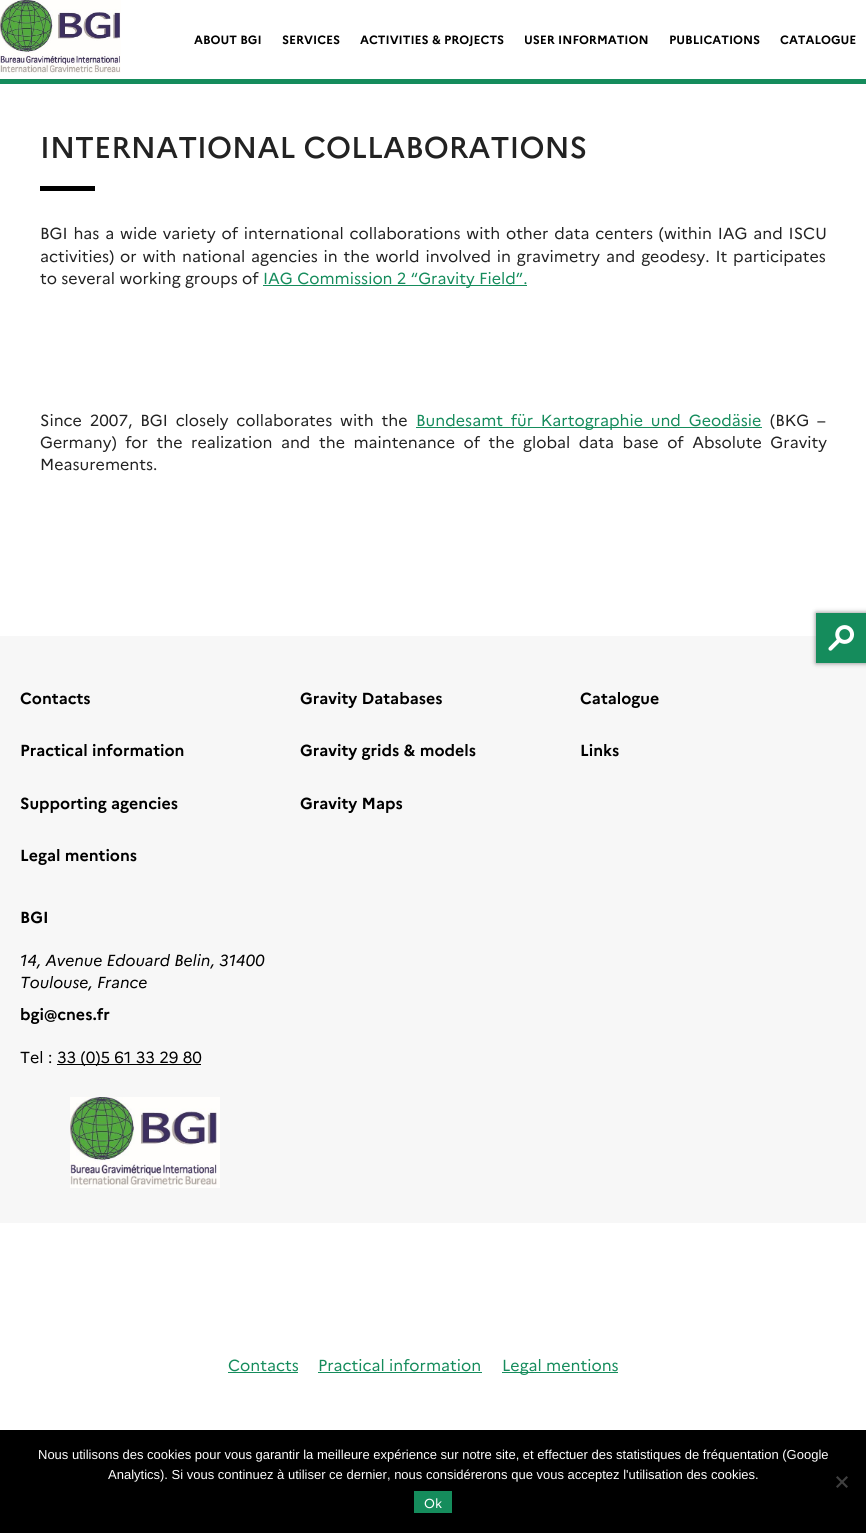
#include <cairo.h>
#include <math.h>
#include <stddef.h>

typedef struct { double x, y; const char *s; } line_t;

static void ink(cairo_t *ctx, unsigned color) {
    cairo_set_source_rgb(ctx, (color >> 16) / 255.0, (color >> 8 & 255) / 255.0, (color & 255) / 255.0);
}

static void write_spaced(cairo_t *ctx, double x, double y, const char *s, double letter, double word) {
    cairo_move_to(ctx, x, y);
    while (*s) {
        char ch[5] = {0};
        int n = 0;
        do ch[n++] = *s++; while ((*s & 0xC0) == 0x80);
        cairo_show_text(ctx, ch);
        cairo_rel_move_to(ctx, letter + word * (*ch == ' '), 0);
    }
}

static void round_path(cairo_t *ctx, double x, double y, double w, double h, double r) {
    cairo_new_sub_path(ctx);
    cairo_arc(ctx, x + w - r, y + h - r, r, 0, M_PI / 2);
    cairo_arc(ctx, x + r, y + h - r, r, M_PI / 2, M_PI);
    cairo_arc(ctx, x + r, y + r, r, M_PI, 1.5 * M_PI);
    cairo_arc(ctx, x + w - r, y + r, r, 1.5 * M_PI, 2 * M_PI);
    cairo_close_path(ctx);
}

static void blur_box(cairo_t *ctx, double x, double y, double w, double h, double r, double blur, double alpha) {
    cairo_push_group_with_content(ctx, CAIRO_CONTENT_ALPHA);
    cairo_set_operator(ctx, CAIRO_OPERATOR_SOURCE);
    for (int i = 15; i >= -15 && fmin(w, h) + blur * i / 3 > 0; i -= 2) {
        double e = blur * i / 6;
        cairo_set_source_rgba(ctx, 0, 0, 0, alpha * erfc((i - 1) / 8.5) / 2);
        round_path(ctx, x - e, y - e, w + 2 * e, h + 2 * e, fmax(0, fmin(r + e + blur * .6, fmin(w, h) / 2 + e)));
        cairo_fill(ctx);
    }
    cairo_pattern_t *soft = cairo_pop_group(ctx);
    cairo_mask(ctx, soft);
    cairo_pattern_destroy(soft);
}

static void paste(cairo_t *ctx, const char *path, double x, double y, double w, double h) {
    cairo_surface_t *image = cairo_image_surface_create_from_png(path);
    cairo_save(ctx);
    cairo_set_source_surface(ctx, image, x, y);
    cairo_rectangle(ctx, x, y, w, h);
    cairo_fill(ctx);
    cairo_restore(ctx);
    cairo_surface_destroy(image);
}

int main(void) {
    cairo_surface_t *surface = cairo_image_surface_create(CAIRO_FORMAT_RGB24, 866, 1533);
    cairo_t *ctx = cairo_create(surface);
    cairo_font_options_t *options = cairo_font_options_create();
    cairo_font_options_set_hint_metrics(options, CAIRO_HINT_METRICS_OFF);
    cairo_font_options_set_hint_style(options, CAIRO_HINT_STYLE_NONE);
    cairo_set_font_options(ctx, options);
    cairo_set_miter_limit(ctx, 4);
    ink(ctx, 0xFFFFFF);
    cairo_paint(ctx);
    ink(ctx, 0x158C5C);
    cairo_rectangle(ctx, 0, 79, 866, 5);
    cairo_fill(ctx);
    paste(ctx, "media/1.png", 0, 0, 121, 73);
    cairo_select_font_face(ctx, "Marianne", CAIRO_FONT_SLANT_NORMAL, CAIRO_FONT_WEIGHT_BOLD);
    cairo_set_font_size(ctx, 12);
    ink(ctx, 0x000000);
    {
        static const line_t items[] = {
            {194, 44, "ABOUT BGI"},
            {282, 44, "SERVICES"},
            {360, 44, "ACTIVITIES & PROJECTS"},
            {524, 44, "USER INFORMATION"},
            {669, 44, "PUBLICATIONS"},
            {780, 44, "CATALOGUE"},
        };
        for (size_t i = 0; i < sizeof items / sizeof *items; i++) {
            cairo_move_to(ctx, items[i].x, items[i].y);
            cairo_show_text(ctx, items[i].s);
        }
    }
    cairo_select_font_face(ctx, "Marianne Medium", CAIRO_FONT_SLANT_NORMAL, CAIRO_FONT_WEIGHT_NORMAL);
    cairo_set_font_size(ctx, 30);
    ink(ctx, 0x222222);
    cairo_move_to(ctx, 40, 158);
    cairo_show_text(ctx, "INTERNATIONAL COLLABORATIONS");
    ink(ctx, 0x000000);
    cairo_rectangle(ctx, 40, 186, 55, 5);
    cairo_fill(ctx);
    cairo_select_font_face(ctx, "Marianne", CAIRO_FONT_SLANT_NORMAL, CAIRO_FONT_WEIGHT_NORMAL);
    cairo_set_font_size(ctx, 16);
    ink(ctx, 0x222222);
    write_spaced(ctx, 40, 239, "BGI has a wide variety of international collaborations with other data centers (within IAG and ISCU", 0, 1.5);
    write_spaced(ctx, 40, 262, "activities) or with national agencies in the world involved in gravimetry and geodesy. It participates", 0, 1.5);
    cairo_move_to(ctx, 40, 284);
    cairo_show_text(ctx, "to several working groups of");
    ink(ctx, 0x158C5C);
    cairo_rectangle(ctx, 263, 285, 264, 1);
    cairo_fill(ctx);
    cairo_move_to(ctx, 263, 284);
    cairo_show_text(ctx, "IAG Commission 2 “Gravity Field”.");
    ink(ctx, 0x222222);
    write_spaced(ctx, 40, 426, "Since 2007, BGI closely collaborates with the", 0, 3.5);
    ink(ctx, 0x158C5C);
    cairo_rectangle(ctx, 416, 427, 346, 1);
    cairo_fill(ctx);
    write_spaced(ctx, 416, 426, "Bundesamt für Kartographie und Geodäsie", 0, 3.5);
    ink(ctx, 0x222222);
    write_spaced(ctx, 770, 426, "(BKG –", 0, 3.5);
    write_spaced(ctx, 40, 448, "Germany) for the realization and the maintenance of the global data base of Absolute Gravity", 0, 4.25);
    cairo_move_to(ctx, 40, 470);
    cairo_show_text(ctx, "Measurements.");
    ink(ctx, 0xF7F7F7);
    cairo_rectangle(ctx, 0, 636, 866, 587);
    cairo_fill(ctx);
    cairo_select_font_face(ctx, "Marianne", CAIRO_FONT_SLANT_NORMAL, CAIRO_FONT_WEIGHT_BOLD);
    ink(ctx, 0x000000);
    {
        static const line_t items[] = {
            {20, 704, "Contacts"},
            {20, 756, "Practical information"},
            {20, 809, "Supporting agencies"},
            {20, 861, "Legal mentions"},
            {300, 704, "Gravity Databases"},
            {300, 756, "Gravity grids & models"},
            {300, 809, "Gravity Maps"},
            {580, 704, "Catalogue"},
            {580, 756, "Links"},
            {20, 923, "BGI"},
        };
        for (size_t i = 0; i < sizeof items / sizeof *items; i++) {
            cairo_move_to(ctx, items[i].x, items[i].y);
            cairo_show_text(ctx, items[i].s);
        }
    }
    cairo_select_font_face(ctx, "Marianne", CAIRO_FONT_SLANT_ITALIC, CAIRO_FONT_WEIGHT_NORMAL);
    cairo_move_to(ctx, 20, 966);
    cairo_show_text(ctx, "14, Avenue Edouard Belin, 31400");
    cairo_move_to(ctx, 20, 988);
    cairo_show_text(ctx, "Toulouse, France");
    cairo_select_font_face(ctx, "Marianne", CAIRO_FONT_SLANT_NORMAL, CAIRO_FONT_WEIGHT_BOLD);
    cairo_move_to(ctx, 20, 1020);
    cairo_show_text(ctx, "bgi@cnes.fr");
    cairo_select_font_face(ctx, "Marianne", CAIRO_FONT_SLANT_NORMAL, CAIRO_FONT_WEIGHT_NORMAL);
    cairo_move_to(ctx, 20, 1063);
    cairo_show_text(ctx, "Tel :");
    cairo_rectangle(ctx, 57, 1064, 144, 1);
    cairo_fill(ctx);
    cairo_move_to(ctx, 57, 1063);
    cairo_show_text(ctx, "33 (0)5 61 33 29 80");
    paste(ctx, "media/2.png", 70, 1097, 150, 91);
    ink(ctx, 0x158C5C);
    cairo_move_to(ctx, 228, 1371);
    cairo_show_text(ctx, "Contacts");
    cairo_rectangle(ctx, 228, 1372, 70, 1);
    cairo_fill(ctx);
    cairo_move_to(ctx, 318, 1371);
    cairo_show_text(ctx, "Practical information");
    cairo_rectangle(ctx, 318, 1372, 164, 1);
    cairo_fill(ctx);
    cairo_rectangle(ctx, 502, 1372, 116, 1);
    cairo_fill(ctx);
    cairo_move_to(ctx, 502, 1371);
    cairo_show_text(ctx, "Legal mentions");
    ink(ctx, 0x000000);
    blur_box(ctx, 816, 613, 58, 50, 0, 2.5, 0.5);
    ink(ctx, 0x158C5C);
    cairo_rectangle(ctx, 816, 613, 50, 50);
    cairo_fill(ctx);
    paste(ctx, "media/3.png", 828, 625, 27, 26);
    ink(ctx, 0x000000);
    cairo_rectangle(ctx, 0, 1430, 866, 103);
    cairo_fill(ctx);
    cairo_select_font_face(ctx, "Liberation Sans", CAIRO_FONT_SLANT_NORMAL, CAIRO_FONT_WEIGHT_NORMAL);
    cairo_set_font_size(ctx, 13);
    ink(ctx, 0xFFFFFF);
    cairo_move_to(ctx, 38, 1459);
    cairo_show_text(ctx, "Nous utilisons des cookies pour vous garantir la meilleure expérience sur notre site, et effectuer des statistiques de fréquentation (Google");
    cairo_move_to(ctx, 108, 1479);
    cairo_show_text(ctx, "Analytics). Si vous continuez à utiliser ce dernier, nous considérerons que vous acceptez l'utilisation des cookies.");
    ink(ctx, 0x404040);
    cairo_new_path(ctx);
    cairo_move_to(ctx, 846.5, 1476);
    cairo_line_to(ctx, 848, 1477.5);
    cairo_line_to(ctx, 837.5, 1488);
    cairo_line_to(ctx, 836, 1486.5);
    cairo_close_path(ctx);
    cairo_fill(ctx);
    cairo_new_path(ctx);
    cairo_move_to(ctx, 836, 1477.5);
    cairo_line_to(ctx, 837.5, 1476);
    cairo_line_to(ctx, 848, 1486.5);
    cairo_line_to(ctx, 846.5, 1488);
    cairo_close_path(ctx);
    cairo_fill(ctx);
    ink(ctx, 0x158C5C);
    cairo_rectangle(ctx, 414, 1491, 38, 22);
    cairo_fill(ctx);
    cairo_select_font_face(ctx, "Marianne", CAIRO_FONT_SLANT_NORMAL, CAIRO_FONT_WEIGHT_NORMAL);
    ink(ctx, 0xFFFFFF);
    cairo_move_to(ctx, 424, 1508);
    cairo_show_text(ctx, "Ok");
    cairo_surface_write_to_png(surface, "image.png");
    cairo_font_options_destroy(options);
    cairo_destroy(ctx);
    cairo_surface_destroy(surface);
    return 0;
}
